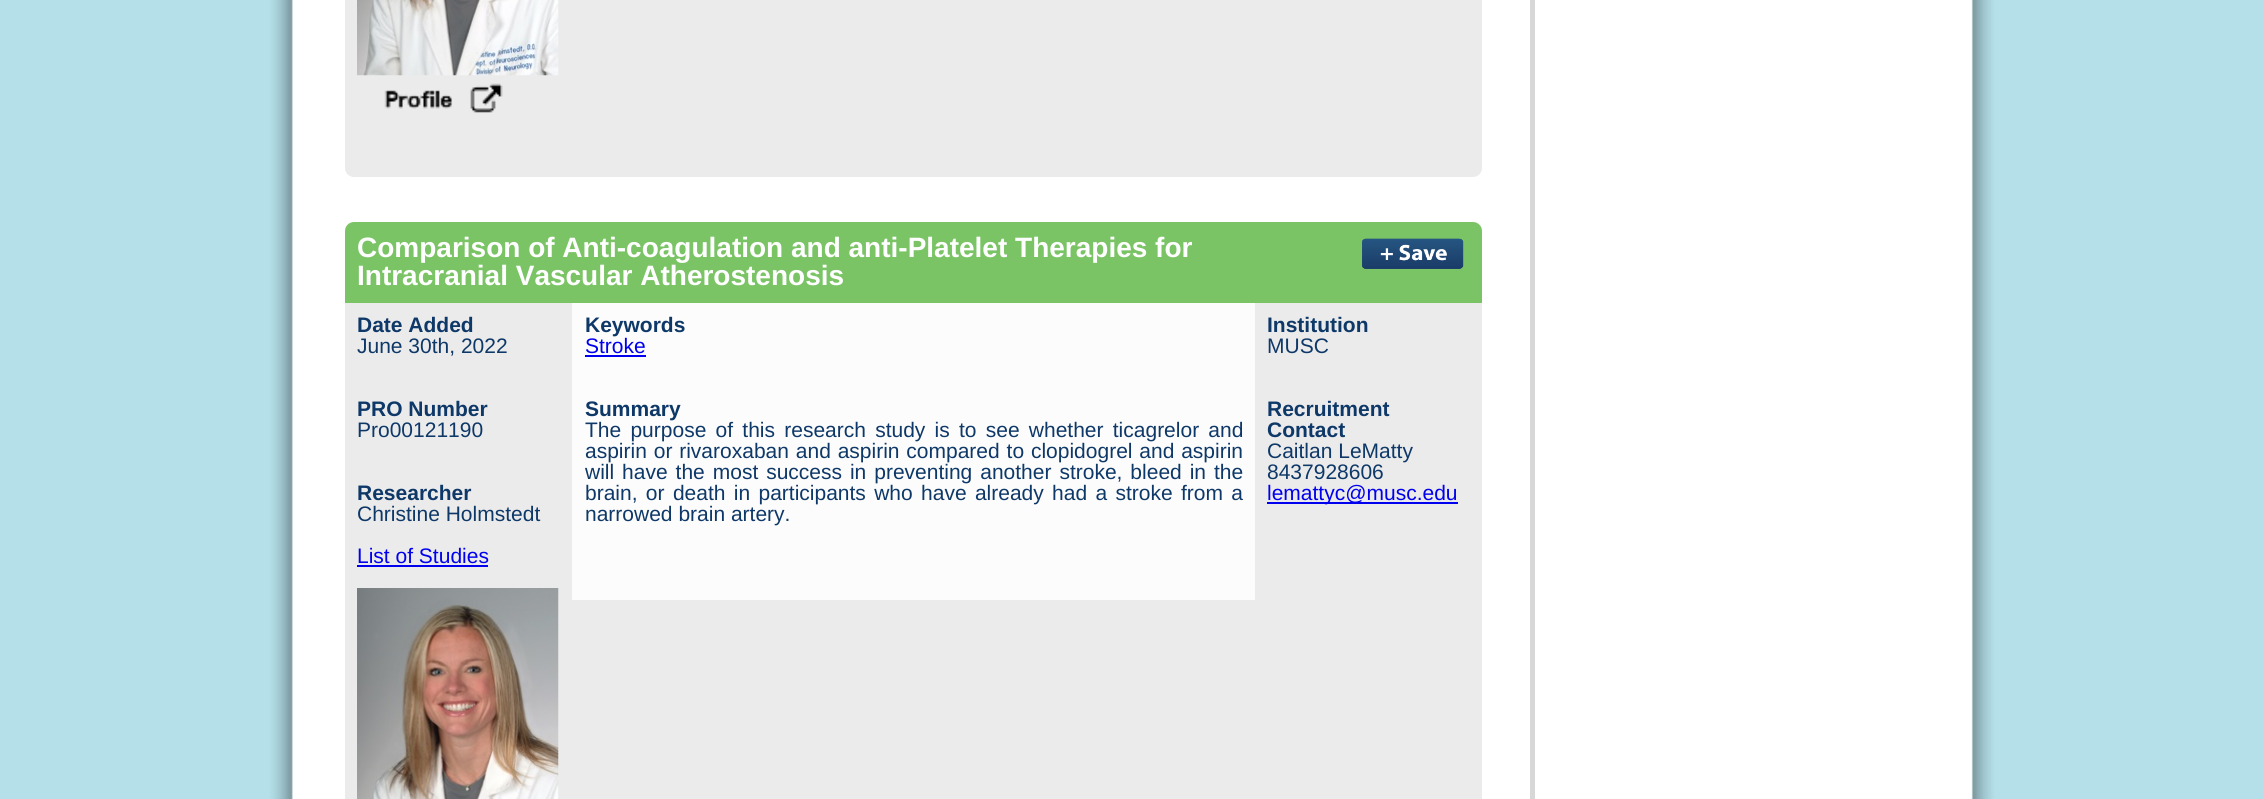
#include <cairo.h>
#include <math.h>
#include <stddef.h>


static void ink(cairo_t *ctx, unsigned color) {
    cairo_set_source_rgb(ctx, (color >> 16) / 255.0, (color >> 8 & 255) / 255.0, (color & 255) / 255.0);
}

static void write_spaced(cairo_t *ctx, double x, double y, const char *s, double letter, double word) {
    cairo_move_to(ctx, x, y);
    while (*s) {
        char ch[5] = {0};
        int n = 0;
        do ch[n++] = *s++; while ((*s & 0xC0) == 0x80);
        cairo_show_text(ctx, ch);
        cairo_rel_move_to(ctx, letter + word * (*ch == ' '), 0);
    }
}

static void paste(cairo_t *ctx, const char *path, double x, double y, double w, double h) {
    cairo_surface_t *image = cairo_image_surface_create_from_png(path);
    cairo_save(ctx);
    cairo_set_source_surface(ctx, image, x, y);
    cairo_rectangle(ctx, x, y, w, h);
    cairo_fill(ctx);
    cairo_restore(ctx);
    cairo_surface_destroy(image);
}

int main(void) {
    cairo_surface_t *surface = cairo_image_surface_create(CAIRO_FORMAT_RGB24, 2264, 799);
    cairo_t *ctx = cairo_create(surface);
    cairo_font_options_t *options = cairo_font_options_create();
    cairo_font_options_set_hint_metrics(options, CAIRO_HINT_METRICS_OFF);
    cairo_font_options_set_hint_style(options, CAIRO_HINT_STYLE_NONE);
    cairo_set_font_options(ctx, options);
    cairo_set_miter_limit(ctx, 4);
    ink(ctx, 0xB5E0EA);
    cairo_paint(ctx);
    paste(ctx, "media/1.png", 270, 0, 1724, 799);
    ink(ctx, 0xD8D7D7);
    cairo_rectangle(ctx, 1530, 0, 5, 799);
    cairo_fill(ctx);
    ink(ctx, 0xEBEBEB);
    cairo_new_path(ctx);
    cairo_move_to(ctx, 345, -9);
    cairo_line_to(ctx, 1482, -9);
    cairo_line_to(ctx, 1482, 168);
    cairo_curve_to(ctx, 1482, 173, 1478, 177, 1473, 177);
    cairo_line_to(ctx, 354, 177);
    cairo_curve_to(ctx, 349, 177, 345, 173, 345, 168);
    cairo_close_path(ctx);
    cairo_fill(ctx);
    paste(ctx, "media/2.png", 357, 0, 202, 76);
    paste(ctx, "media/3.png", 384, 83, 119, 30);
    ink(ctx, 0x7BC466);
    cairo_new_path(ctx);
    cairo_move_to(ctx, 354, 222);
    cairo_line_to(ctx, 1473, 222);
    cairo_curve_to(ctx, 1478, 222, 1482, 226, 1482, 231);
    cairo_line_to(ctx, 1482, 303);
    cairo_line_to(ctx, 345, 303);
    cairo_line_to(ctx, 345, 231);
    cairo_curve_to(ctx, 345, 226, 349, 222, 354, 222);
    cairo_close_path(ctx);
    cairo_fill(ctx);
    cairo_select_font_face(ctx, "Liberation Sans", CAIRO_FONT_SLANT_NORMAL, CAIRO_FONT_WEIGHT_BOLD);
    cairo_set_font_size(ctx, 28);
    ink(ctx, 0xFFFFFF);
    cairo_move_to(ctx, 357, 257);
    cairo_show_text(ctx, "Comparison of Anti-coagulation and anti-Platelet Therapies for");
    cairo_move_to(ctx, 357, 285);
    cairo_show_text(ctx, "Intracranial Vascular Atherostenosis");
    paste(ctx, "media/4.png", 1362, 238, 102, 31);
    ink(ctx, 0xEBEBEB);
    cairo_rectangle(ctx, 345, 303, 1137, 496);
    cairo_fill(ctx);
    cairo_set_font_size(ctx, 21);
    ink(ctx, 0x0E3868);
    cairo_move_to(ctx, 357, 332);
    cairo_show_text(ctx, "Date Added");
    cairo_select_font_face(ctx, "Liberation Sans", CAIRO_FONT_SLANT_NORMAL, CAIRO_FONT_WEIGHT_NORMAL);
    cairo_move_to(ctx, 357, 353);
    cairo_show_text(ctx, "June 30th, 2022");
    cairo_select_font_face(ctx, "Liberation Sans", CAIRO_FONT_SLANT_NORMAL, CAIRO_FONT_WEIGHT_BOLD);
    cairo_move_to(ctx, 357, 416);
    cairo_show_text(ctx, "PRO Number");
    cairo_select_font_face(ctx, "Liberation Sans", CAIRO_FONT_SLANT_NORMAL, CAIRO_FONT_WEIGHT_NORMAL);
    cairo_move_to(ctx, 357, 437);
    cairo_show_text(ctx, "Pro00121190");
    cairo_select_font_face(ctx, "Liberation Sans", CAIRO_FONT_SLANT_NORMAL, CAIRO_FONT_WEIGHT_BOLD);
    cairo_move_to(ctx, 357, 500);
    cairo_show_text(ctx, "Researcher");
    cairo_select_font_face(ctx, "Liberation Sans", CAIRO_FONT_SLANT_NORMAL, CAIRO_FONT_WEIGHT_NORMAL);
    cairo_move_to(ctx, 357, 521);
    cairo_show_text(ctx, "Christine Holmstedt");
    ink(ctx, 0x0000EE);
    cairo_move_to(ctx, 357, 563);
    cairo_show_text(ctx, "List of Studies");
    cairo_rectangle(ctx, 357, 565, 131, 2);
    cairo_fill(ctx);
    paste(ctx, "media/5.png", 357, 588, 202, 211);
    ink(ctx, 0xFCFCFC);
    cairo_rectangle(ctx, 572, 303, 683, 297);
    cairo_fill(ctx);
    cairo_select_font_face(ctx, "Liberation Sans", CAIRO_FONT_SLANT_NORMAL, CAIRO_FONT_WEIGHT_BOLD);
    ink(ctx, 0x0E3868);
    cairo_move_to(ctx, 585, 332);
    cairo_show_text(ctx, "Keywords");
    cairo_select_font_face(ctx, "Liberation Sans", CAIRO_FONT_SLANT_NORMAL, CAIRO_FONT_WEIGHT_NORMAL);
    ink(ctx, 0x0000EE);
    cairo_move_to(ctx, 585, 353);
    cairo_show_text(ctx, "Stroke");
    cairo_rectangle(ctx, 585, 355, 61, 2);
    cairo_fill(ctx);
    cairo_select_font_face(ctx, "Liberation Sans", CAIRO_FONT_SLANT_NORMAL, CAIRO_FONT_WEIGHT_BOLD);
    ink(ctx, 0x0E3868);
    cairo_move_to(ctx, 585, 416);
    cairo_show_text(ctx, "Summary");
    cairo_select_font_face(ctx, "Liberation Sans", CAIRO_FONT_SLANT_NORMAL, CAIRO_FONT_WEIGHT_NORMAL);
    write_spaced(ctx, 585, 437, "The purpose of this research study is to see whether ticagrelor and", 0, 3.4);
    write_spaced(ctx, 585, 458, "aspirin or rivaroxaban and aspirin compared to clopidogrel and aspirin", 0, 1);
    write_spaced(ctx, 585, 479, "will have the most success in preventing another stroke, bleed in the", 0, 2.1);
    write_spaced(ctx, 585, 500, "brain, or death in participants who have already had a stroke from a", 0, 2.5);
    cairo_move_to(ctx, 585, 521);
    cairo_show_text(ctx, "narrowed brain artery.");
    cairo_select_font_face(ctx, "Liberation Sans", CAIRO_FONT_SLANT_NORMAL, CAIRO_FONT_WEIGHT_BOLD);
    cairo_move_to(ctx, 1267, 332);
    cairo_show_text(ctx, "Institution");
    cairo_select_font_face(ctx, "Liberation Sans", CAIRO_FONT_SLANT_NORMAL, CAIRO_FONT_WEIGHT_NORMAL);
    cairo_move_to(ctx, 1267, 353);
    cairo_show_text(ctx, "MUSC");
    cairo_select_font_face(ctx, "Liberation Sans", CAIRO_FONT_SLANT_NORMAL, CAIRO_FONT_WEIGHT_BOLD);
    cairo_move_to(ctx, 1267, 416);
    cairo_show_text(ctx, "Recruitment");
    cairo_move_to(ctx, 1267, 437);
    cairo_show_text(ctx, "Contact");
    cairo_select_font_face(ctx, "Liberation Sans", CAIRO_FONT_SLANT_NORMAL, CAIRO_FONT_WEIGHT_NORMAL);
    cairo_move_to(ctx, 1267, 458);
    cairo_show_text(ctx, "Caitlan LeMatty");
    cairo_move_to(ctx, 1267, 479);
    cairo_show_text(ctx, "8437928606");
    ink(ctx, 0x0000EE);
    cairo_rectangle(ctx, 1267, 502, 191, 2);
    cairo_fill(ctx);
    cairo_move_to(ctx, 1267, 500);
    cairo_show_text(ctx, "lemattyc@musc.edu");
    cairo_surface_write_to_png(surface, "image.png");
    cairo_font_options_destroy(options);
    cairo_destroy(ctx);
    cairo_surface_destroy(surface);
    return 0;
}
